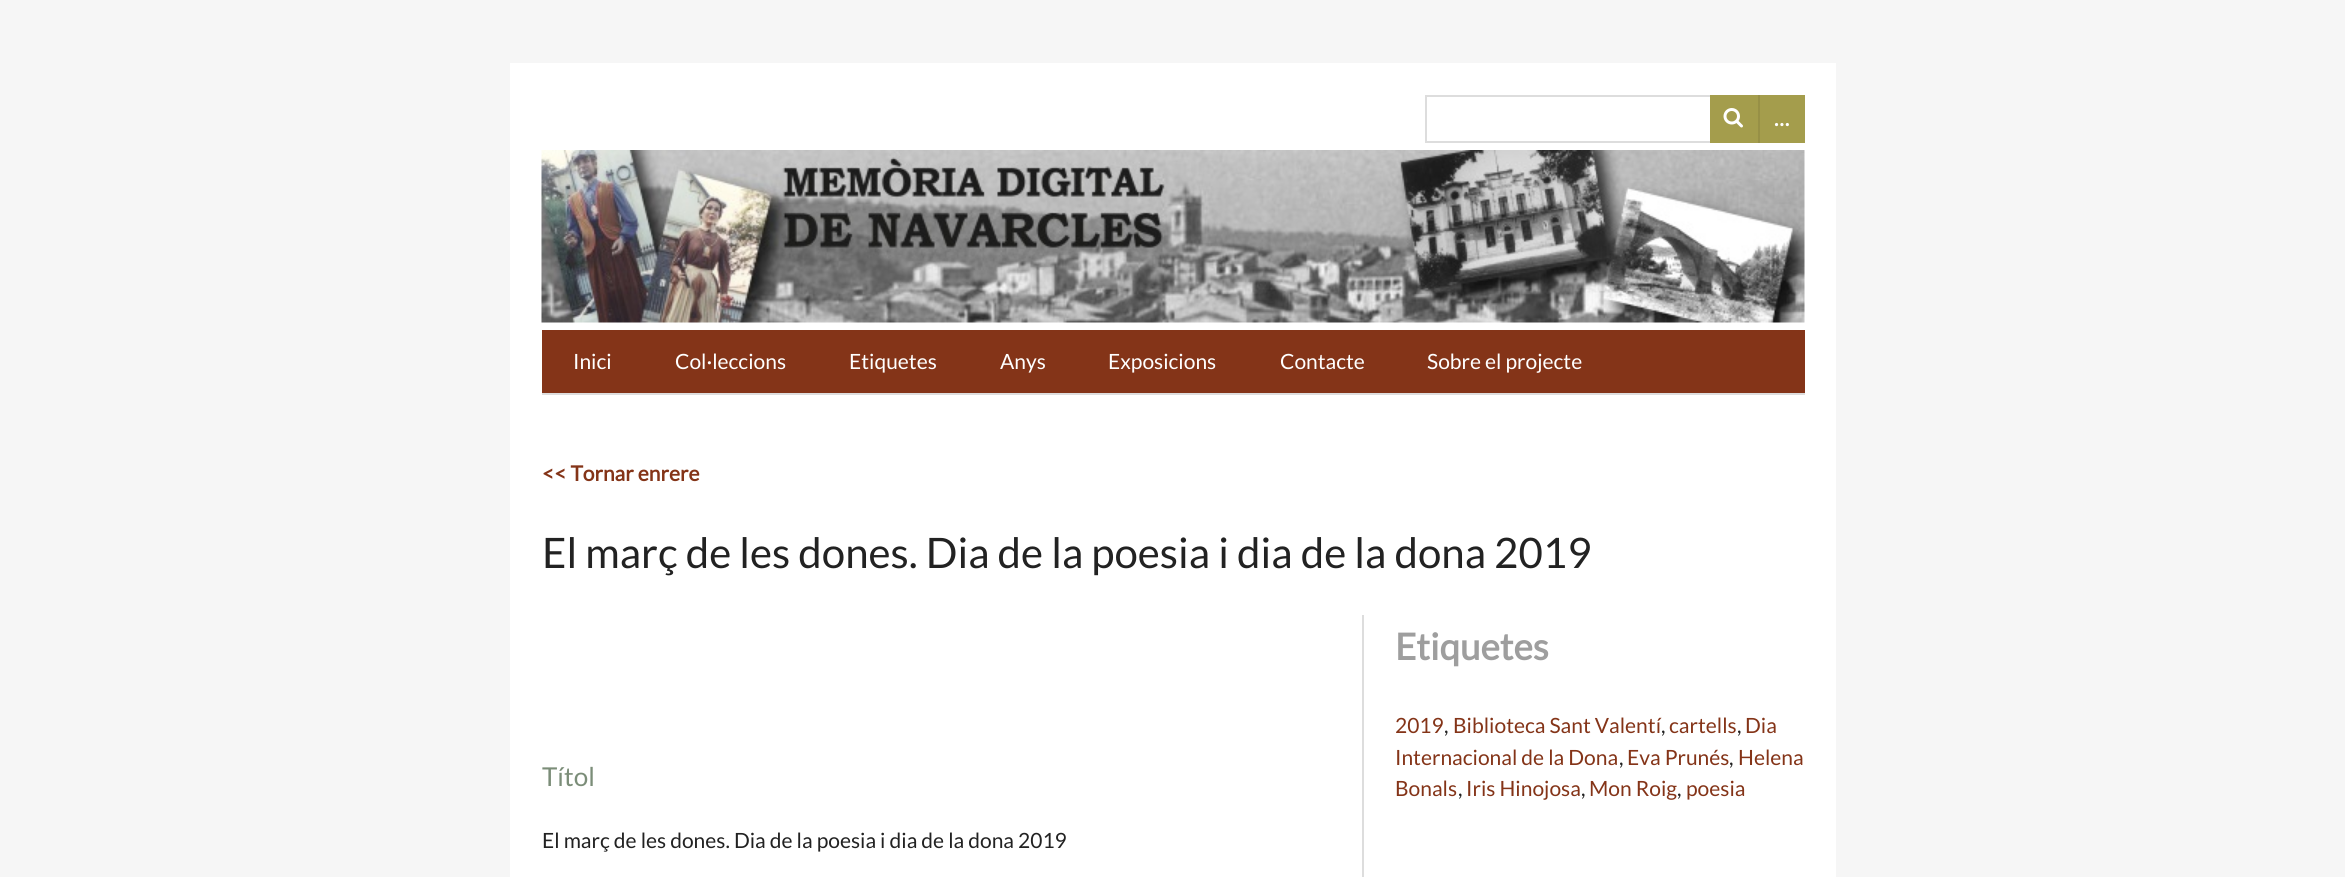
#include <cairo.h>
#include <math.h>
#include <stddef.h>

typedef struct { double x, y; const char *s; } line_t;

static void ink(cairo_t *ctx, unsigned color) {
    cairo_set_source_rgb(ctx, (color >> 16) / 255.0, (color >> 8 & 255) / 255.0, (color & 255) / 255.0);
}

static void paste(cairo_t *ctx, const char *path, double x, double y, double w, double h) {
    cairo_surface_t *image = cairo_image_surface_create_from_png(path);
    cairo_save(ctx);
    cairo_set_source_surface(ctx, image, x, y);
    cairo_rectangle(ctx, x, y, w, h);
    cairo_fill(ctx);
    cairo_restore(ctx);
    cairo_surface_destroy(image);
}

int main(void) {
    cairo_surface_t *surface = cairo_image_surface_create(CAIRO_FORMAT_RGB24, 2345, 877);
    cairo_t *ctx = cairo_create(surface);
    cairo_font_options_t *options = cairo_font_options_create();
    cairo_font_options_set_hint_metrics(options, CAIRO_HINT_METRICS_OFF);
    cairo_font_options_set_hint_style(options, CAIRO_HINT_STYLE_NONE);
    cairo_set_font_options(ctx, options);
    cairo_set_miter_limit(ctx, 4);
    ink(ctx, 0xF6F6F6);
    cairo_paint(ctx);
    ink(ctx, 0xFFFFFF);
    cairo_rectangle(ctx, 510, 63, 1326, 814);
    cairo_fill(ctx);
    cairo_rectangle(ctx, 1426, 96, 378, 46);
    ink(ctx, 0xDDDDDD);
    cairo_stroke(ctx);
    ink(ctx, 0xA49D4C);
    cairo_rectangle(ctx, 1710, 95, 48, 48);
    cairo_fill(ctx);
    paste(ctx, "media/1.png", 1723, 108, 20, 20);
    cairo_rectangle(ctx, 1760, 95, 45, 48);
    cairo_fill(ctx);
    ink(ctx, 0x979046);
    cairo_rectangle(ctx, 1758, 95, 2, 48);
    cairo_fill(ctx);
    cairo_select_font_face(ctx, "Lato", CAIRO_FONT_SLANT_NORMAL, CAIRO_FONT_WEIGHT_BOLD);
    cairo_set_font_size(ctx, 21);
    ink(ctx, 0xFFFFFF);
    cairo_move_to(ctx, 1774, 126);
    cairo_show_text(ctx, "…");
    paste(ctx, "media/2.png", 541, 150, 1264, 173);
    ink(ctx, 0x843418);
    cairo_rectangle(ctx, 542, 330, 1263, 63);
    cairo_fill(ctx);
    cairo_select_font_face(ctx, "Lato", CAIRO_FONT_SLANT_NORMAL, CAIRO_FONT_WEIGHT_NORMAL);
    ink(ctx, 0xFFFFFF);
    {
        static const line_t items[] = {
            {573, 369, "Inici"},
            {675, 369, "Col·leccions"},
            {849, 369, "Etiquetes"},
            {1000, 369, "Anys"},
            {1108, 369, "Exposicions"},
            {1280, 369, "Contacte"},
            {1427, 369, "Sobre el projecte"},
        };
        for (size_t i = 0; i < sizeof items / sizeof *items; i++) {
            cairo_move_to(ctx, items[i].x, items[i].y);
            cairo_show_text(ctx, items[i].s);
        }
    }
    ink(ctx, 0xDDDDDD);
    cairo_rectangle(ctx, 542, 393, 1263, 2);
    cairo_fill(ctx);
    cairo_select_font_face(ctx, "Lato", CAIRO_FONT_SLANT_NORMAL, CAIRO_FONT_WEIGHT_BOLD);
    ink(ctx, 0x843418);
    cairo_move_to(ctx, 542, 481);
    cairo_show_text(ctx, "<< Tornar enrere");
    cairo_select_font_face(ctx, "Lato", CAIRO_FONT_SLANT_NORMAL, CAIRO_FONT_WEIGHT_NORMAL);
    cairo_set_font_size(ctx, 42);
    ink(ctx, 0x222222);
    cairo_move_to(ctx, 542, 568);
    cairo_show_text(ctx, "El març de les dones. Dia de la poesia i dia de la dona 2019");
    ink(ctx, 0xDDDDDD);
    cairo_rectangle(ctx, 1362, 615, 2, 262);
    cairo_fill(ctx);
    cairo_select_font_face(ctx, "Lato", CAIRO_FONT_SLANT_NORMAL, CAIRO_FONT_WEIGHT_BOLD);
    cairo_set_font_size(ctx, 36.75);
    ink(ctx, 0x9E9E9E);
    cairo_move_to(ctx, 1395, 660);
    cairo_show_text(ctx, "Etiquetes");
    cairo_select_font_face(ctx, "Lato", CAIRO_FONT_SLANT_NORMAL, CAIRO_FONT_WEIGHT_NORMAL);
    cairo_set_font_size(ctx, 21);
    ink(ctx, 0x843418);
    cairo_move_to(ctx, 1395, 733);
    cairo_show_text(ctx, "2019");
    ink(ctx, 0x222222);
    cairo_move_to(ctx, 1444, 733);
    cairo_show_text(ctx, ",");
    ink(ctx, 0x843418);
    cairo_move_to(ctx, 1453, 733);
    cairo_show_text(ctx, "Biblioteca Sant Valentí");
    ink(ctx, 0x222222);
    cairo_move_to(ctx, 1661, 733);
    cairo_show_text(ctx, ",");
    ink(ctx, 0x843418);
    cairo_move_to(ctx, 1669, 733);
    cairo_show_text(ctx, "cartells");
    ink(ctx, 0x222222);
    cairo_move_to(ctx, 1737, 733);
    cairo_show_text(ctx, ",");
    ink(ctx, 0x843418);
    cairo_move_to(ctx, 1745, 733);
    cairo_show_text(ctx, "Dia");
    cairo_move_to(ctx, 1395, 765);
    cairo_show_text(ctx, "Internacional de la Dona");
    ink(ctx, 0x222222);
    cairo_move_to(ctx, 1619, 765);
    cairo_show_text(ctx, ",");
    ink(ctx, 0x843418);
    cairo_move_to(ctx, 1627, 765);
    cairo_show_text(ctx, "Eva Prunés");
    ink(ctx, 0x222222);
    cairo_move_to(ctx, 1729, 765);
    cairo_show_text(ctx, ",");
    ink(ctx, 0x843418);
    cairo_move_to(ctx, 1738, 765);
    cairo_show_text(ctx, "Helena");
    cairo_move_to(ctx, 1395, 796);
    cairo_show_text(ctx, "Bonals");
    ink(ctx, 0x222222);
    cairo_move_to(ctx, 1458, 796);
    cairo_show_text(ctx, ",");
    ink(ctx, 0x843418);
    cairo_move_to(ctx, 1466, 796);
    cairo_show_text(ctx, "Iris Hinojosa");
    ink(ctx, 0x222222);
    cairo_move_to(ctx, 1581, 796);
    cairo_show_text(ctx, ",");
    ink(ctx, 0x843418);
    cairo_move_to(ctx, 1589, 796);
    cairo_show_text(ctx, "Mon Roig");
    ink(ctx, 0x222222);
    cairo_move_to(ctx, 1677, 796);
    cairo_show_text(ctx, ",");
    ink(ctx, 0x843418);
    cairo_move_to(ctx, 1686, 796);
    cairo_show_text(ctx, "poesia");
    cairo_set_font_size(ctx, 26);
    ink(ctx, 0x7B8D78);
    cairo_move_to(ctx, 542, 786);
    cairo_show_text(ctx, "Títol");
    cairo_set_font_size(ctx, 21);
    ink(ctx, 0x222222);
    cairo_move_to(ctx, 542, 848);
    cairo_show_text(ctx, "El març de les dones. Dia de la poesia i dia de la dona 2019");
    cairo_surface_write_to_png(surface, "image.png");
    cairo_font_options_destroy(options);
    cairo_destroy(ctx);
    cairo_surface_destroy(surface);
    return 0;
}
